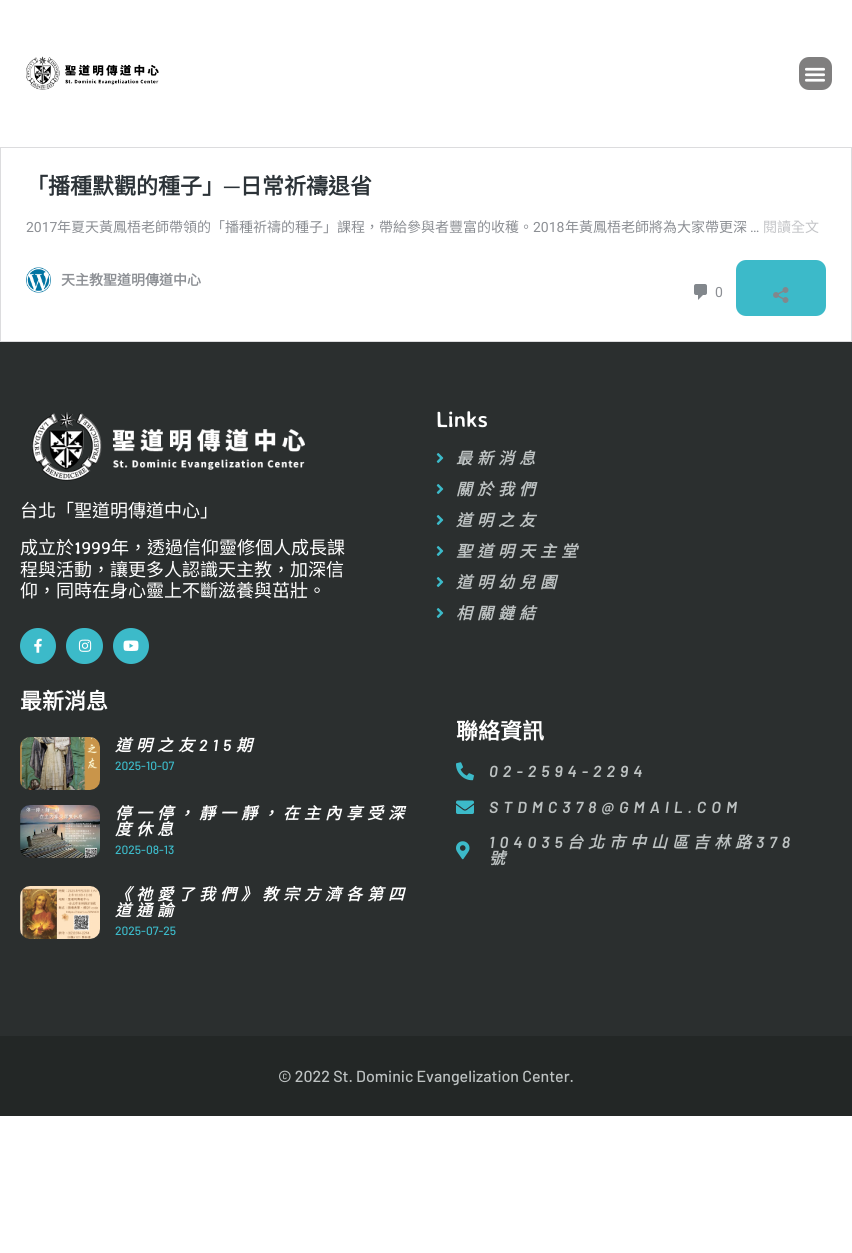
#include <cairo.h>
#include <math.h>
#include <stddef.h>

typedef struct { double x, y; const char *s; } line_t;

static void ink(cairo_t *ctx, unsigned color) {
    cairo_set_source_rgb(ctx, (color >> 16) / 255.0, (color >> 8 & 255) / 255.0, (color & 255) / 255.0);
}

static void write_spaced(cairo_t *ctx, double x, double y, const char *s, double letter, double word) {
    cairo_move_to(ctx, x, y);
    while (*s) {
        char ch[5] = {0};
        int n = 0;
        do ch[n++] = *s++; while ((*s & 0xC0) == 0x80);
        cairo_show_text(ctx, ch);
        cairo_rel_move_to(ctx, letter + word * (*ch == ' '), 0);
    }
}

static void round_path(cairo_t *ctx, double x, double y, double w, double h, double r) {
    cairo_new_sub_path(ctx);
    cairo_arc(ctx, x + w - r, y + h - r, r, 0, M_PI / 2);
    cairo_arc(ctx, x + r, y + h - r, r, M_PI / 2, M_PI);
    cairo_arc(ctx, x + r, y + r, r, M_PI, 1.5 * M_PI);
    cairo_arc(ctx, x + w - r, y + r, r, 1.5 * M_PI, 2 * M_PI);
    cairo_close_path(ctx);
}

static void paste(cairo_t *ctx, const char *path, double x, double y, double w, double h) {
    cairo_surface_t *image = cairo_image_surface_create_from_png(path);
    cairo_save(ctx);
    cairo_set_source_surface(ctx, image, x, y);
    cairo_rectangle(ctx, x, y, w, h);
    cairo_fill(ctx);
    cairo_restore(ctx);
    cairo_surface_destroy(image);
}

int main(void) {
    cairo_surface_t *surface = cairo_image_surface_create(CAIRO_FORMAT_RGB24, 852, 1253);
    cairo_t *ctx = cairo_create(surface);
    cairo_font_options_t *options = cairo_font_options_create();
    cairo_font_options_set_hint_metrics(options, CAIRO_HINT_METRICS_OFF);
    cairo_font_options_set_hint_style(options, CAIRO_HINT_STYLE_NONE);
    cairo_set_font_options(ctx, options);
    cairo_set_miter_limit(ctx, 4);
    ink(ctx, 0xFFFFFF);
    cairo_paint(ctx);
    paste(ctx, "media/1.png", 26, 56, 133, 34);
    ink(ctx, 0x807F7F);
    round_path(ctx, 799, 57, 33, 33, 10);
    cairo_fill(ctx);
    paste(ctx, "media/2.png", 805, 67, 20, 15);
    cairo_rectangle(ctx, 0.5, 147.5, 851, 194);
    ink(ctx, 0xDCDCDE);
    cairo_set_line_width(ctx, 1);
    cairo_stroke(ctx);
    cairo_select_font_face(ctx, "Noto Sans CJK TC", CAIRO_FONT_SLANT_NORMAL, CAIRO_FONT_WEIGHT_BOLD);
    cairo_set_font_size(ctx, 22);
    ink(ctx, 0x2C3338);
    cairo_move_to(ctx, 26, 194);
    cairo_show_text(ctx, "「播種默觀的種子」");
    cairo_select_font_face(ctx, "Liberation Sans", CAIRO_FONT_SLANT_NORMAL, CAIRO_FONT_WEIGHT_BOLD);
    cairo_move_to(ctx, 224, 194);
    cairo_show_text(ctx, "─");
    cairo_select_font_face(ctx, "Noto Sans CJK TC", CAIRO_FONT_SLANT_NORMAL, CAIRO_FONT_WEIGHT_BOLD);
    cairo_move_to(ctx, 240, 194);
    cairo_show_text(ctx, "日常祈禱退省");
    cairo_select_font_face(ctx, "Roboto", CAIRO_FONT_SLANT_NORMAL, CAIRO_FONT_WEIGHT_NORMAL);
    cairo_set_font_size(ctx, 14);
    ink(ctx, 0x8C8F94);
    cairo_move_to(ctx, 26, 232);
    cairo_show_text(ctx, "2017");
    cairo_select_font_face(ctx, "Noto Sans CJK TC", CAIRO_FONT_SLANT_NORMAL, CAIRO_FONT_WEIGHT_NORMAL);
    cairo_move_to(ctx, 57, 232);
    cairo_show_text(ctx, "年夏天黃鳳梧老師帶領的「播種祈禱的種子」課程，帶給參與者豐富的收穫。");
    cairo_select_font_face(ctx, "Roboto", CAIRO_FONT_SLANT_NORMAL, CAIRO_FONT_WEIGHT_NORMAL);
    cairo_move_to(ctx, 533, 232);
    cairo_show_text(ctx, "2018");
    cairo_select_font_face(ctx, "Noto Sans CJK TC", CAIRO_FONT_SLANT_NORMAL, CAIRO_FONT_WEIGHT_NORMAL);
    cairo_move_to(ctx, 565, 232);
    cairo_show_text(ctx, "年黃鳳梧老師將為大家帶更深");
    cairo_select_font_face(ctx, "Roboto", CAIRO_FONT_SLANT_NORMAL, CAIRO_FONT_WEIGHT_NORMAL);
    cairo_move_to(ctx, 750, 232);
    cairo_show_text(ctx, "…");
    cairo_select_font_face(ctx, "Noto Sans CJK TC", CAIRO_FONT_SLANT_NORMAL, CAIRO_FONT_WEIGHT_NORMAL);
    ink(ctx, 0xC3C4C7);
    cairo_move_to(ctx, 763, 232);
    cairo_show_text(ctx, "閱讀全文");
    paste(ctx, "media/3.png", 26, 267, 25, 26);
    cairo_select_font_face(ctx, "Noto Sans CJK TC", CAIRO_FONT_SLANT_NORMAL, CAIRO_FONT_WEIGHT_BOLD);
    ink(ctx, 0x8C8F94);
    cairo_move_to(ctx, 61, 285);
    cairo_show_text(ctx, "天主教聖道明傳道中心");
    paste(ctx, "media/4.png", 694, 284, 13, 16);
    cairo_select_font_face(ctx, "Roboto", CAIRO_FONT_SLANT_NORMAL, CAIRO_FONT_WEIGHT_NORMAL);
    cairo_move_to(ctx, 715, 297);
    cairo_show_text(ctx, "0");
    ink(ctx, 0x3CBAC9);
    round_path(ctx, 736, 260, 90, 56, 10);
    cairo_fill(ctx);
    paste(ctx, "media/5.png", 773, 287, 16, 16);
    ink(ctx, 0x2B2F2F);
    cairo_rectangle(ctx, 0, 342, 852, 694);
    cairo_fill(ctx);
    paste(ctx, "media/6.png", 32, 412, 273, 69);
    cairo_select_font_face(ctx, "Noto Sans CJK TC", CAIRO_FONT_SLANT_NORMAL, CAIRO_FONT_WEIGHT_NORMAL);
    cairo_set_font_size(ctx, 18);
    ink(ctx, 0xFFFFFF);
    cairo_move_to(ctx, 20, 517);
    cairo_show_text(ctx, "台北「聖道明傳道中心」");
    cairo_move_to(ctx, 20, 554);
    cairo_show_text(ctx, "成立於");
    cairo_select_font_face(ctx, "Averia Sans Libre", CAIRO_FONT_SLANT_NORMAL, CAIRO_FONT_WEIGHT_NORMAL);
    cairo_move_to(ctx, 74, 554);
    cairo_show_text(ctx, "1999");
    cairo_select_font_face(ctx, "Noto Sans CJK TC", CAIRO_FONT_SLANT_NORMAL, CAIRO_FONT_WEIGHT_NORMAL);
    {
        static const line_t items[] = {
            {111, 554, "年，透過信仰靈修個人成長課"},
            {20, 576, "程與活動，讓更多人認識天主教，加深信"},
            {20, 597, "仰，同時在身心靈上不斷滋養與茁壯。"},
        };
        for (size_t i = 0; i < sizeof items / sizeof *items; i++) {
            cairo_move_to(ctx, items[i].x, items[i].y);
            cairo_show_text(ctx, items[i].s);
        }
    }
    ink(ctx, 0x3CBAC9);
    cairo_new_path(ctx);
    cairo_arc(ctx, 38, 646, 18, 0, 2 * M_PI);
    cairo_fill(ctx);
    paste(ctx, "media/7.png", 34, 638, 8, 15);
    round_path(ctx, 66, 628, 37, 36, 18);
    cairo_fill(ctx);
    paste(ctx, "media/8.png", 78, 639, 14, 13);
    cairo_arc(ctx, 131, 646, 18, 0, 2 * M_PI);
    cairo_fill(ctx);
    paste(ctx, "media/9.png", 123, 640, 16, 11);
    cairo_select_font_face(ctx, "Averia Sans Libre", CAIRO_FONT_SLANT_NORMAL, CAIRO_FONT_WEIGHT_BOLD);
    cairo_set_font_size(ctx, 22);
    ink(ctx, 0xFFFFFF);
    cairo_move_to(ctx, 436, 427);
    cairo_show_text(ctx, "Links");
    paste(ctx, "media/10.png", 436, 453, 8, 10);
    cairo_select_font_face(ctx, "Noto Sans CJK TC", CAIRO_FONT_SLANT_ITALIC, CAIRO_FONT_WEIGHT_BOLD);
    cairo_set_font_size(ctx, 16);
    ink(ctx, 0xBDC2C2);
    write_spaced(ctx, 456, 464, "最新消息", 5, 0);
    paste(ctx, "media/10.png", 436, 484, 8, 10);
    write_spaced(ctx, 456, 495, "關於我們", 5, 0);
    paste(ctx, "media/10.png", 436, 515, 8, 10);
    write_spaced(ctx, 456, 526, "道明之友", 5, 0);
    paste(ctx, "media/10.png", 436, 546, 8, 10);
    write_spaced(ctx, 456, 557, "聖道明天主堂", 5, 0);
    paste(ctx, "media/10.png", 436, 577, 8, 10);
    write_spaced(ctx, 456, 588, "道明幼兒園", 5, 0);
    paste(ctx, "media/10.png", 436, 608, 8, 10);
    write_spaced(ctx, 456, 619, "相關鏈結", 5, 0);
    cairo_select_font_face(ctx, "Noto Sans CJK TC", CAIRO_FONT_SLANT_NORMAL, CAIRO_FONT_WEIGHT_BOLD);
    cairo_set_font_size(ctx, 22);
    ink(ctx, 0xFFFFFF);
    cairo_move_to(ctx, 20, 709);
    cairo_show_text(ctx, "最新消息");
    paste(ctx, "media/11.png", 20, 737, 80, 53);
    cairo_select_font_face(ctx, "Noto Sans CJK TC", CAIRO_FONT_SLANT_ITALIC, CAIRO_FONT_WEIGHT_BOLD);
    cairo_set_font_size(ctx, 16);
    write_spaced(ctx, 115, 751, "道明之友", 5, 0);
    cairo_select_font_face(ctx, "Barlow SemiBold", CAIRO_FONT_SLANT_ITALIC, CAIRO_FONT_WEIGHT_NORMAL);
    write_spaced(ctx, 199, 751, "215", 5, 0);
    cairo_select_font_face(ctx, "Noto Sans CJK TC", CAIRO_FONT_SLANT_ITALIC, CAIRO_FONT_WEIGHT_BOLD);
    write_spaced(ctx, 236, 751, "期", 5, 0);
    cairo_select_font_face(ctx, "Barlow Medium", CAIRO_FONT_SLANT_NORMAL, CAIRO_FONT_WEIGHT_NORMAL);
    cairo_set_font_size(ctx, 12);
    ink(ctx, 0x3CBAC9);
    cairo_move_to(ctx, 115, 770);
    cairo_show_text(ctx, "2025-10-07");
    paste(ctx, "media/12.png", 20, 805, 80, 53);
    cairo_select_font_face(ctx, "Noto Sans CJK TC", CAIRO_FONT_SLANT_ITALIC, CAIRO_FONT_WEIGHT_BOLD);
    cairo_set_font_size(ctx, 16);
    ink(ctx, 0xFFFFFF);
    write_spaced(ctx, 115, 819, "停一停，靜一靜，在主內享受深", 5, 0);
    write_spaced(ctx, 115, 835, "度休息", 5, 0);
    cairo_select_font_face(ctx, "Barlow Medium", CAIRO_FONT_SLANT_NORMAL, CAIRO_FONT_WEIGHT_NORMAL);
    cairo_set_font_size(ctx, 12);
    ink(ctx, 0x3CBAC9);
    cairo_move_to(ctx, 115, 854);
    cairo_show_text(ctx, "2025-08-13");
    paste(ctx, "media/13.png", 20, 886, 80, 53);
    cairo_select_font_face(ctx, "Noto Sans CJK TC", CAIRO_FONT_SLANT_ITALIC, CAIRO_FONT_WEIGHT_BOLD);
    cairo_set_font_size(ctx, 16);
    ink(ctx, 0xFFFFFF);
    write_spaced(ctx, 115, 900, "《祂愛了我們》教宗方濟各第四", 5, 0);
    write_spaced(ctx, 115, 916, "道通諭", 5, 0);
    cairo_select_font_face(ctx, "Barlow Medium", CAIRO_FONT_SLANT_NORMAL, CAIRO_FONT_WEIGHT_NORMAL);
    cairo_set_font_size(ctx, 12);
    ink(ctx, 0x3CBAC9);
    cairo_move_to(ctx, 115, 935);
    cairo_show_text(ctx, "2025-07-25");
    cairo_select_font_face(ctx, "Noto Sans CJK TC", CAIRO_FONT_SLANT_NORMAL, CAIRO_FONT_WEIGHT_BOLD);
    cairo_set_font_size(ctx, 22);
    ink(ctx, 0xFFFFFF);
    cairo_move_to(ctx, 456, 739);
    cairo_show_text(ctx, "聯絡資訊");
    paste(ctx, "media/14.png", 456, 762, 18, 19);
    cairo_select_font_face(ctx, "Barlow SemiBold", CAIRO_FONT_SLANT_ITALIC, CAIRO_FONT_WEIGHT_NORMAL);
    cairo_set_font_size(ctx, 16);
    ink(ctx, 0xBDC2C2);
    write_spaced(ctx, 489, 777, "02-2594-2294", 5, 0);
    paste(ctx, "media/15.png", 456, 800, 18, 14);
    write_spaced(ctx, 489, 813, "STDMC378@GMAIL.COM", 5, 0);
    paste(ctx, "media/16.png", 456, 841, 14, 19);
    write_spaced(ctx, 489, 848, "104035", 5, 0);
    cairo_select_font_face(ctx, "Noto Sans CJK TC", CAIRO_FONT_SLANT_ITALIC, CAIRO_FONT_WEIGHT_BOLD);
    write_spaced(ctx, 567, 848, "台北市中山區吉林路", 5, 0);
    cairo_select_font_face(ctx, "Barlow SemiBold", CAIRO_FONT_SLANT_ITALIC, CAIRO_FONT_WEIGHT_NORMAL);
    write_spaced(ctx, 756, 848, "378", 5, 0);
    cairo_select_font_face(ctx, "Noto Sans CJK TC", CAIRO_FONT_SLANT_ITALIC, CAIRO_FONT_WEIGHT_BOLD);
    write_spaced(ctx, 489, 864, "號", 5, 0);
    ink(ctx, 0x232726);
    cairo_rectangle(ctx, 0, 1036, 852, 80);
    cairo_fill(ctx);
    cairo_select_font_face(ctx, "Barlow Medium", CAIRO_FONT_SLANT_NORMAL, CAIRO_FONT_WEIGHT_NORMAL);
    ink(ctx, 0xBDC2C2);
    cairo_move_to(ctx, 278, 1082);
    cairo_show_text(ctx, "© 2022 St. Dominic Evangelization Center.");
    cairo_surface_write_to_png(surface, "image.png");
    cairo_font_options_destroy(options);
    cairo_destroy(ctx);
    cairo_surface_destroy(surface);
    return 0;
}
